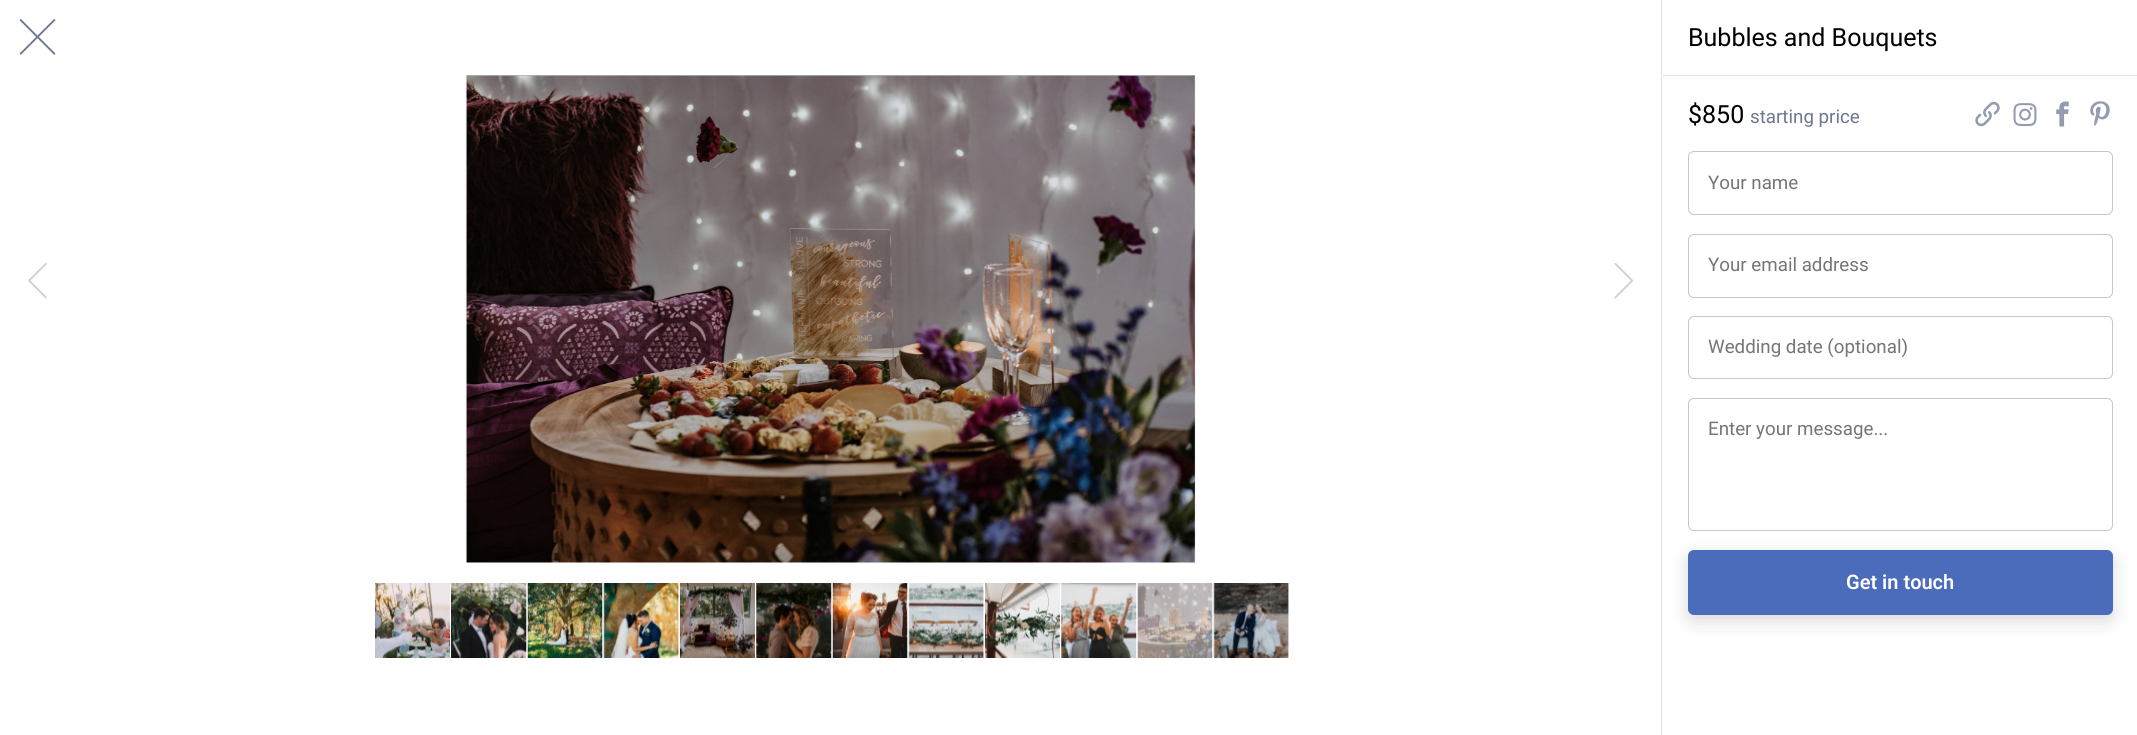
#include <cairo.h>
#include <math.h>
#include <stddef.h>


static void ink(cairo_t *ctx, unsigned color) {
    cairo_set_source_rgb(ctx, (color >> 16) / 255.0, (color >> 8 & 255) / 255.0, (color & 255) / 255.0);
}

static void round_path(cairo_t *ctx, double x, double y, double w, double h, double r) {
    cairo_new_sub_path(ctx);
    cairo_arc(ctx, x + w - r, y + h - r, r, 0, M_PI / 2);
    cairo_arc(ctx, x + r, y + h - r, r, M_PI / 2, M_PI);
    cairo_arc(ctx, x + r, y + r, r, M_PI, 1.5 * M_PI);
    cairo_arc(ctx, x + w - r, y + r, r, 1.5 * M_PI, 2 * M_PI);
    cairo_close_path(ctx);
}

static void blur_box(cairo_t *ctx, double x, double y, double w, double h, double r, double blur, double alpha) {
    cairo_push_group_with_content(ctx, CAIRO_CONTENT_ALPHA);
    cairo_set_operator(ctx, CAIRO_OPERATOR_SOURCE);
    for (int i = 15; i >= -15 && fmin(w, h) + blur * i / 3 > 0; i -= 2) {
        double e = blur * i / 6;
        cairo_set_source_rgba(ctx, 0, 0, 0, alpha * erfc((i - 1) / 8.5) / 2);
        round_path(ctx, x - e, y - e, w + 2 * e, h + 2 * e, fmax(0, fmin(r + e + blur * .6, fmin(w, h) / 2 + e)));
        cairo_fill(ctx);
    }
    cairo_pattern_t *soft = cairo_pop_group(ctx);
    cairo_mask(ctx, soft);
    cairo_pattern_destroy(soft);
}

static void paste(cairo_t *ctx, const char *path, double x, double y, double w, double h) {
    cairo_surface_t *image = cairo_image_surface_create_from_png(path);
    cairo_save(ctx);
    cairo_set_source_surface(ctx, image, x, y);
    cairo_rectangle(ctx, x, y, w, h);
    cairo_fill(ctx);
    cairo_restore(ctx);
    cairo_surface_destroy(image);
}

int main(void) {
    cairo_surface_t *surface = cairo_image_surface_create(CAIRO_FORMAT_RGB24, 2137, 735);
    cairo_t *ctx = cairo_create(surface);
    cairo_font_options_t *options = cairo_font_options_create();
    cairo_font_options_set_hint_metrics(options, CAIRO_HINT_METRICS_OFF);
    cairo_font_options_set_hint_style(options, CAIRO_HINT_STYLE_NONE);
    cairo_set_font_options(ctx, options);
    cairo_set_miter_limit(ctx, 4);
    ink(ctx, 0xFFFFFF);
    cairo_paint(ctx);
    ink(ctx, 0xDFE2E8);
    cairo_rectangle(ctx, 1661, 0, 1, 735);
    cairo_fill(ctx);
    paste(ctx, "media/1.png", 19, 19, 37, 36);
    paste(ctx, "media/2.png", 28, 263, 19, 36);
    paste(ctx, "media/3.png", 465, 75, 731, 488);
    paste(ctx, "media/4.png", 1614, 263, 19, 36);
    paste(ctx, "media/5.png", 375, 583, 75, 75);
    paste(ctx, "media/6.png", 451, 583, 76, 75);
    paste(ctx, "media/7.png", 527, 583, 76, 75);
    paste(ctx, "media/8.png", 603, 583, 77, 75);
    paste(ctx, "media/9.png", 680, 583, 75, 75);
    paste(ctx, "media/10.png", 756, 583, 76, 75);
    paste(ctx, "media/11.png", 832, 583, 76, 75);
    paste(ctx, "media/12.png", 908, 583, 77, 75);
    paste(ctx, "media/13.png", 985, 583, 75, 75);
    paste(ctx, "media/14.png", 1061, 583, 76, 75);
    paste(ctx, "media/15.png", 1137, 583, 76, 75);
    paste(ctx, "media/16.png", 1213, 583, 76, 75);
    cairo_rectangle(ctx, 1663, 75, 474, 1);
    cairo_fill(ctx);
    cairo_select_font_face(ctx, "Roboto", CAIRO_FONT_SLANT_NORMAL, CAIRO_FONT_WEIGHT_NORMAL);
    cairo_set_font_size(ctx, 25);
    ink(ctx, 0x000000);
    cairo_move_to(ctx, 1688, 46);
    cairo_show_text(ctx, "Bubbles and Bouquets");
    cairo_move_to(ctx, 1688, 123);
    cairo_show_text(ctx, "$850");
    cairo_set_font_size(ctx, 18.75);
    ink(ctx, 0x6C7893);
    cairo_move_to(ctx, 1750, 123);
    cairo_show_text(ctx, "starting price");
    paste(ctx, "media/17.png", 1975, 101, 25, 26);
    paste(ctx, "media/18.png", 2013, 103, 24, 24);
    paste(ctx, "media/19.png", 2056, 101, 13, 26);
    paste(ctx, "media/20.png", 2090, 101, 20, 25);
    round_path(ctx, 1688.5, 151.5, 424, 63, 5.5);
    ink(ctx, 0xC1C6D1);
    cairo_set_line_width(ctx, 1);
    cairo_stroke(ctx);
    ink(ctx, 0x757575);
    cairo_move_to(ctx, 1708, 189);
    cairo_show_text(ctx, "Your name");
    round_path(ctx, 1688.5, 234.5, 424, 63, 5.5);
    ink(ctx, 0xC1C6D1);
    cairo_stroke(ctx);
    ink(ctx, 0x757575);
    cairo_move_to(ctx, 1708, 271);
    cairo_show_text(ctx, "Your email address");
    round_path(ctx, 1688.5, 316.5, 424, 62, 5.5);
    ink(ctx, 0xC1C6D1);
    cairo_stroke(ctx);
    ink(ctx, 0x757575);
    cairo_move_to(ctx, 1708, 353);
    cairo_show_text(ctx, "Wedding date (optional)");
    ink(ctx, 0x000000);
    blur_box(ctx, 1688, 556, 425, 65, 6, 9.5, 0.15);
    round_path(ctx, 1688.5, 398.5, 424, 132, 5.5);
    ink(ctx, 0xC1C6D1);
    cairo_stroke(ctx);
    ink(ctx, 0x757575);
    cairo_move_to(ctx, 1708, 435);
    cairo_show_text(ctx, "Enter your message...");
    ink(ctx, 0x4B6CBA);
    round_path(ctx, 1688, 550, 425, 65, 6);
    cairo_fill(ctx);
    cairo_select_font_face(ctx, "Roboto SemiBold", CAIRO_FONT_SLANT_NORMAL, CAIRO_FONT_WEIGHT_NORMAL);
    cairo_set_font_size(ctx, 20);
    ink(ctx, 0xFFFFFF);
    cairo_move_to(ctx, 1846, 589);
    cairo_show_text(ctx, "Get in touch");
    cairo_surface_write_to_png(surface, "image.png");
    cairo_font_options_destroy(options);
    cairo_destroy(ctx);
    cairo_surface_destroy(surface);
    return 0;
}
